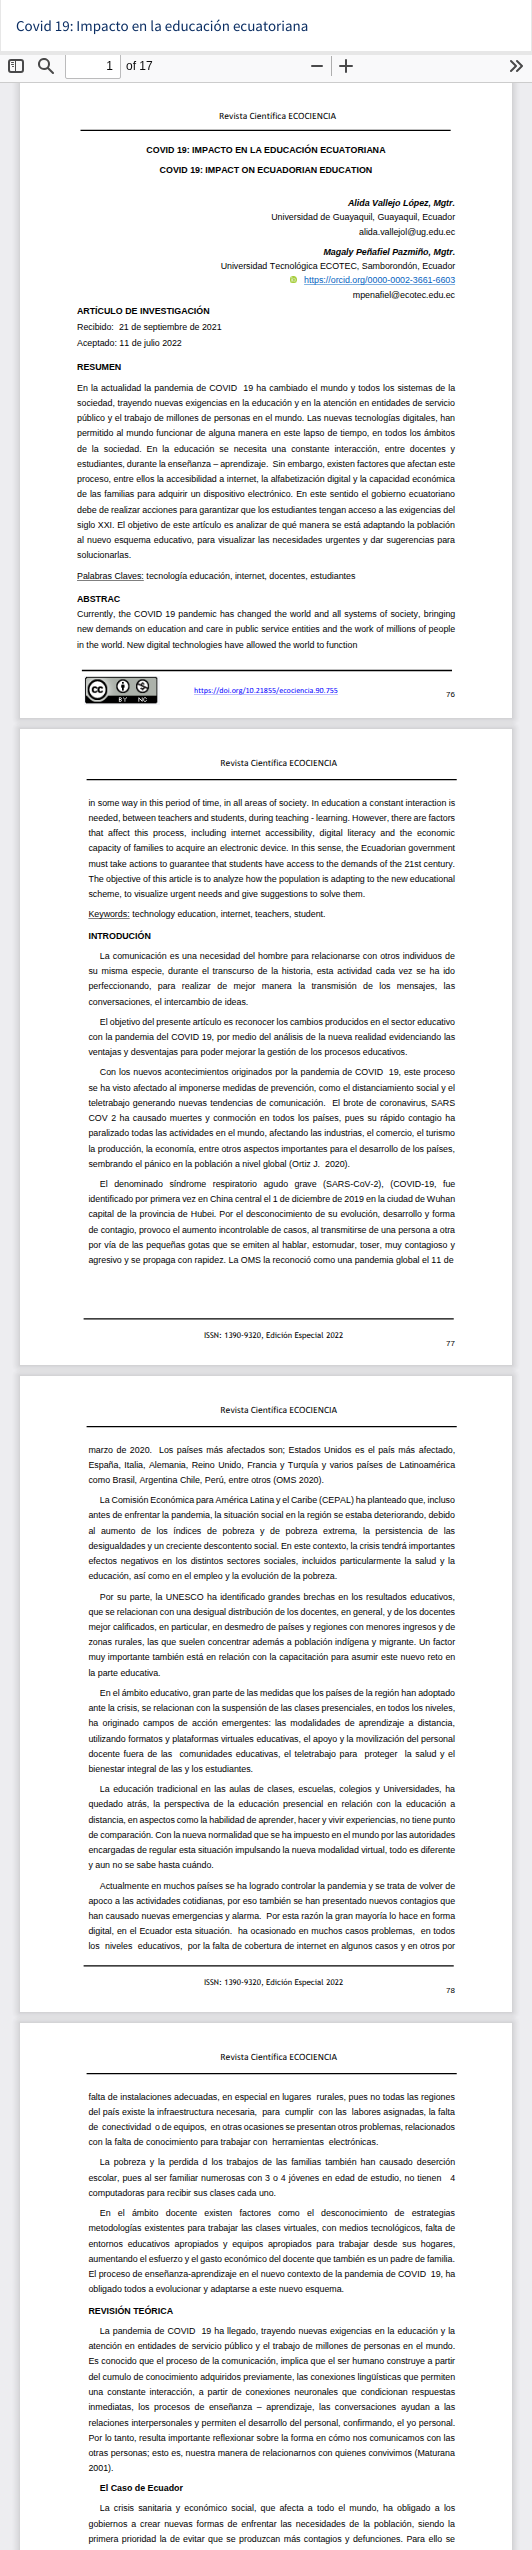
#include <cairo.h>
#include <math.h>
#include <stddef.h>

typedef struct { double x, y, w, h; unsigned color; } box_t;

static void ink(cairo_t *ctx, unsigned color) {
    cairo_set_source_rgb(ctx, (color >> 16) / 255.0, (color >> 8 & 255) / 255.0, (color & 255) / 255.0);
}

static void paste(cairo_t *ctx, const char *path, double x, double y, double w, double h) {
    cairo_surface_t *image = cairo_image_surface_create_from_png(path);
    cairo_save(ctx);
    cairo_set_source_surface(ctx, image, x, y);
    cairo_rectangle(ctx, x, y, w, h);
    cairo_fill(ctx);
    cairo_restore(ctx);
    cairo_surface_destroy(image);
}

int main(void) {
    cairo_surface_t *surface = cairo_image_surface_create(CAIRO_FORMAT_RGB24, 532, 2550);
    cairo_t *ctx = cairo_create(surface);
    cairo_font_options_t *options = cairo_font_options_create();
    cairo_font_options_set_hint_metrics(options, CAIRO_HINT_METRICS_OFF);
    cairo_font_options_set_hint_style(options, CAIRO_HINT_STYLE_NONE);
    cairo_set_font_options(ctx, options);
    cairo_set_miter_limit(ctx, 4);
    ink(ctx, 0xFFFFFF);
    cairo_paint(ctx);
    {
        static const box_t items[] = {
            {531, 0, 1, 55, 0xE7E7E7},
            {0, 51, 532, 4, 0xE7E7E7},
            {0, 0, 1, 55, 0xE7E7E7},
        };
        for (size_t i = 0; i < sizeof items / sizeof *items; i++) {
            ink(ctx, items[i].color);
            cairo_rectangle(ctx, items[i].x, items[i].y, items[i].w, items[i].h);
            cairo_fill(ctx);
        }
    }
    cairo_select_font_face(ctx, "Source Sans Pro", CAIRO_FONT_SLANT_NORMAL, CAIRO_FONT_WEIGHT_NORMAL);
    cairo_set_font_size(ctx, 15);
    ink(ctx, 0x0B2E63);
    cairo_move_to(ctx, 16, 31);
    cairo_show_text(ctx, "Covid 19: Impacto en la educación ecuatoriana");
    paste(ctx, "media/1.png", 0, 55, 532, 2495);
    cairo_surface_write_to_png(surface, "image.png");
    cairo_font_options_destroy(options);
    cairo_destroy(ctx);
    cairo_surface_destroy(surface);
    return 0;
}
